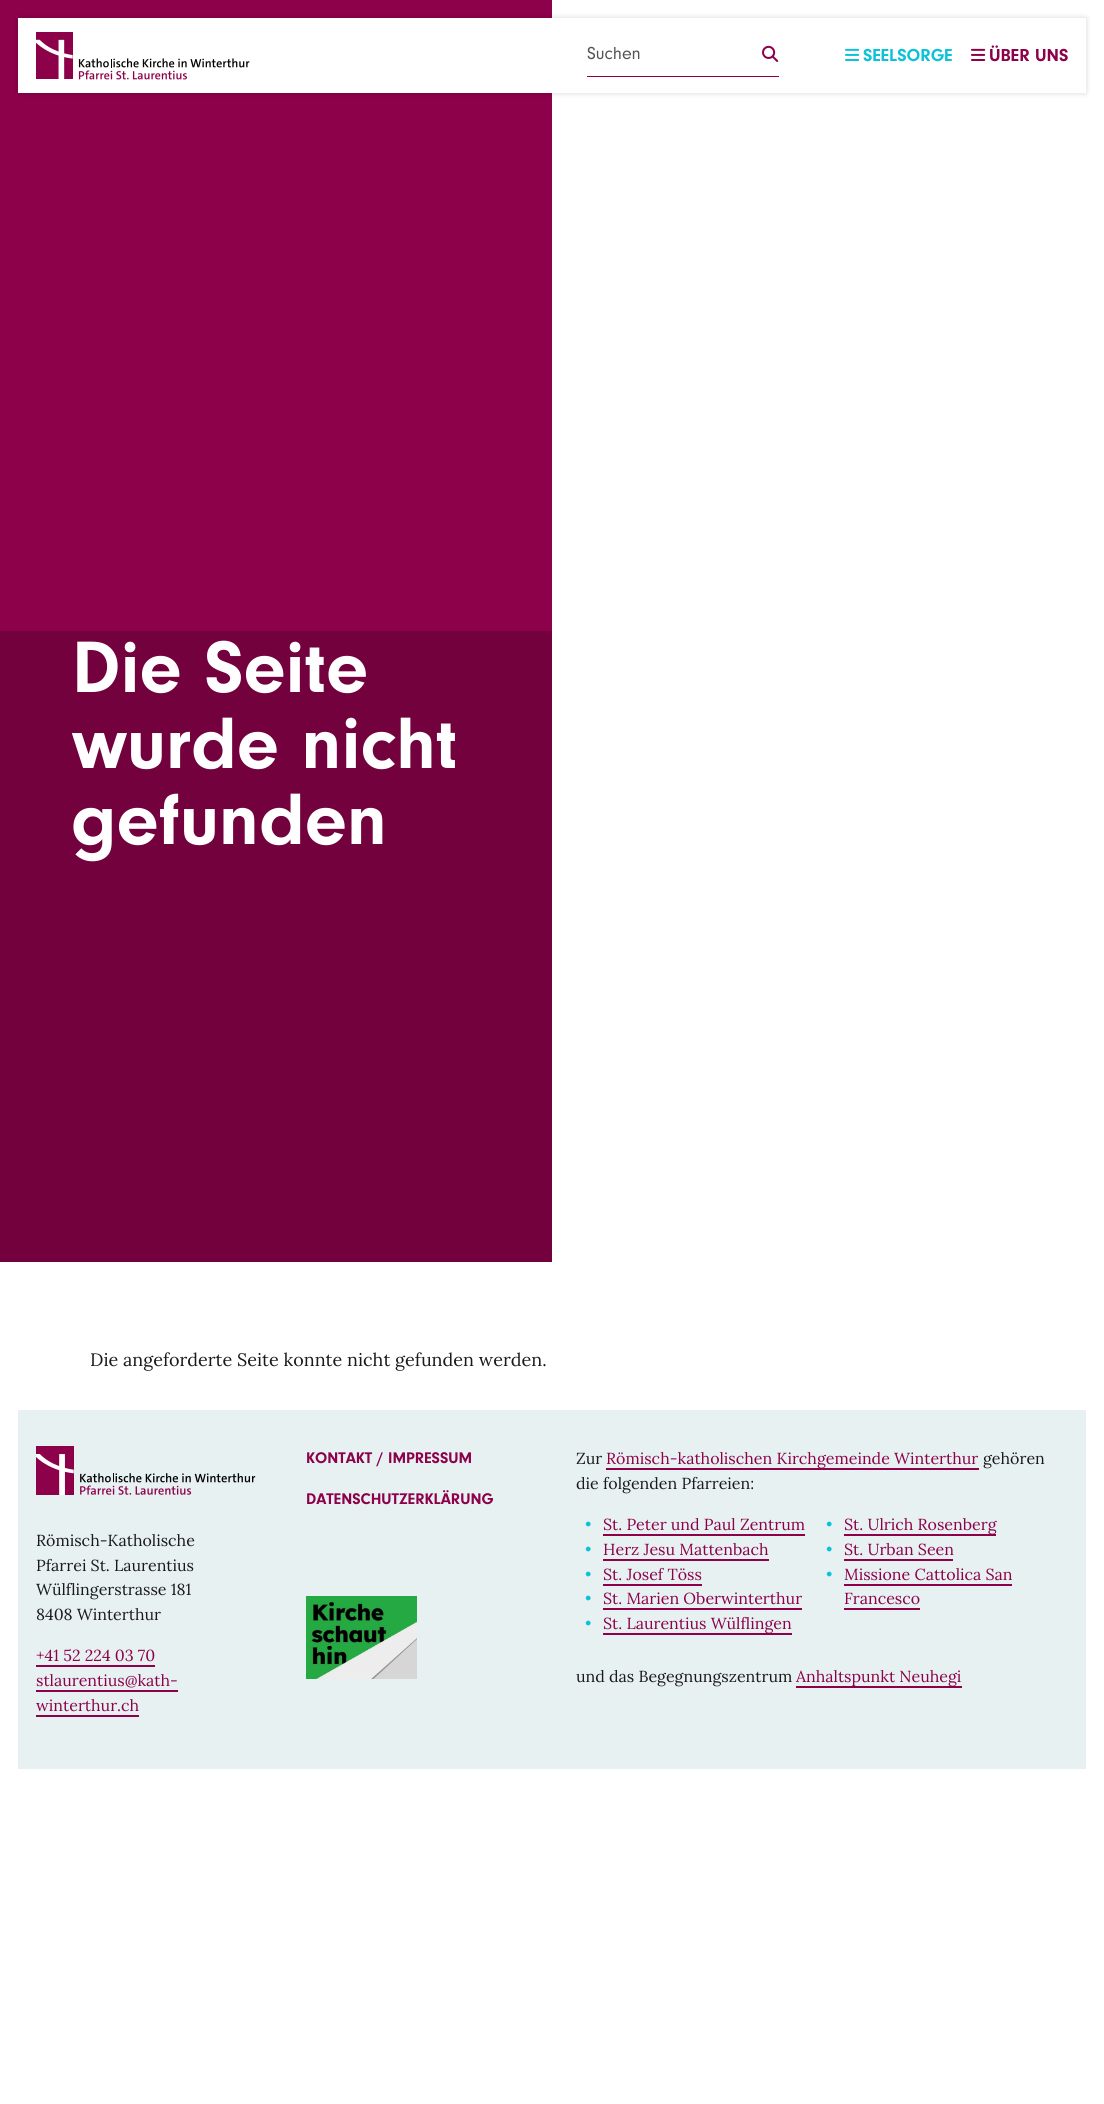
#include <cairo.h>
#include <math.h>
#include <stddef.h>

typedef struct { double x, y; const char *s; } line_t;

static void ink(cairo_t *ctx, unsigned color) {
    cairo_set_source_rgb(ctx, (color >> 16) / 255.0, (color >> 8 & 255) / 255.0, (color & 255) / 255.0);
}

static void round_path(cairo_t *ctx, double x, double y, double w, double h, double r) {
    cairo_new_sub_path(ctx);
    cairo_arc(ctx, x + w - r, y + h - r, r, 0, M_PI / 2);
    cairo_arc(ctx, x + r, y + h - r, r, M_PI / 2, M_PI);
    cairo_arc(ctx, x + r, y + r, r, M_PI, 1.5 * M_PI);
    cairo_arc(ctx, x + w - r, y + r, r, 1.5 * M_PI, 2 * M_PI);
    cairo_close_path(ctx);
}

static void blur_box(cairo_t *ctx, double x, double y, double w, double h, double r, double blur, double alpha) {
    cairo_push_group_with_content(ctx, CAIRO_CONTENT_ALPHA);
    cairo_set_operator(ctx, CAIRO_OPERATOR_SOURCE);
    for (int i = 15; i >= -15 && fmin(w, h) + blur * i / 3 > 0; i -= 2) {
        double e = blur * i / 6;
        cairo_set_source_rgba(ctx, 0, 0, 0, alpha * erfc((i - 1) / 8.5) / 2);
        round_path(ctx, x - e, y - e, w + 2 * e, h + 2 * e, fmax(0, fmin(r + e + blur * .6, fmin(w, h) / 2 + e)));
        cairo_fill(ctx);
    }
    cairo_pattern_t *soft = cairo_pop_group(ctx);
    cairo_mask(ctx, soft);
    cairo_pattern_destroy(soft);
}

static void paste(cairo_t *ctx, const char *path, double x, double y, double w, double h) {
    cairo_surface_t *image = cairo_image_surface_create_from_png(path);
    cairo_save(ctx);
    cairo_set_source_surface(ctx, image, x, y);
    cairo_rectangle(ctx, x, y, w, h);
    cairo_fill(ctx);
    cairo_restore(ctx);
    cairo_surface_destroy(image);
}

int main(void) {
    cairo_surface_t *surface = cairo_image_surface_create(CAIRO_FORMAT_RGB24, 1104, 2104);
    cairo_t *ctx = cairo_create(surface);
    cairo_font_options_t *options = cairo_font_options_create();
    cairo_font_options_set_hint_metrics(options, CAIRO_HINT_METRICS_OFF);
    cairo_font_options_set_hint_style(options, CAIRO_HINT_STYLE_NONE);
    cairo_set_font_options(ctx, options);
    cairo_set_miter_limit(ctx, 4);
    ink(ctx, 0xFFFFFF);
    cairo_paint(ctx);
    ink(ctx, 0x8C014A);
    cairo_rectangle(ctx, 0, 0, 552, 631);
    cairo_fill(ctx);
    ink(ctx, 0x000000);
    blur_box(ctx, 18, 18, 1068, 75, 0, 3, 0.16);
    ink(ctx, 0xFFFFFF);
    cairo_rectangle(ctx, 18, 18, 1068, 75);
    cairo_fill(ctx);
    paste(ctx, "media/1.png", 36, 32, 214, 48);
    ink(ctx, 0x8C014A);
    cairo_rectangle(ctx, 587, 76, 192, 1);
    cairo_fill(ctx);
    cairo_select_font_face(ctx, "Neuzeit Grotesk", CAIRO_FONT_SLANT_NORMAL, CAIRO_FONT_WEIGHT_NORMAL);
    cairo_set_font_size(ctx, 18);
    ink(ctx, 0x535353);
    cairo_move_to(ctx, 587, 59);
    cairo_show_text(ctx, "Suchen");
    paste(ctx, "media/2.png", 762, 45, 17, 17);
    paste(ctx, "media/3.png", 845, 48, 15, 13);
    cairo_select_font_face(ctx, "Neuzeit Grotesk", CAIRO_FONT_SLANT_NORMAL, CAIRO_FONT_WEIGHT_BOLD);
    ink(ctx, 0x0CC2D8);
    cairo_move_to(ctx, 863, 61);
    cairo_show_text(ctx, "SEELSORGE");
    paste(ctx, "media/4.png", 971, 48, 15, 13);
    ink(ctx, 0x8C014A);
    cairo_move_to(ctx, 989, 61);
    cairo_show_text(ctx, "ÜBER UNS");
    ink(ctx, 0x73013D);
    cairo_rectangle(ctx, 0, 631, 552, 631);
    cairo_fill(ctx);
    cairo_set_font_size(ctx, 75.5);
    ink(ctx, 0xFFFFFF);
    {
        static const line_t items[] = {
            {72, 692, "Die Seite"},
            {72, 768, "wurde nicht"},
            {72, 844, "gefunden"},
        };
        for (size_t i = 0; i < sizeof items / sizeof *items; i++) {
            cairo_move_to(ctx, items[i].x, items[i].y);
            cairo_show_text(ctx, items[i].s);
        }
    }
    cairo_select_font_face(ctx, "Lora", CAIRO_FONT_SLANT_NORMAL, CAIRO_FONT_WEIGHT_NORMAL);
    cairo_set_font_size(ctx, 18);
    ink(ctx, 0x1A1A1A);
    cairo_move_to(ctx, 90, 1366);
    cairo_show_text(ctx, "Die angeforderte Seite konnte nicht gefunden werden.");
    ink(ctx, 0xE7F1F2);
    cairo_rectangle(ctx, 18, 1410, 1068, 359);
    cairo_fill(ctx);
    cairo_select_font_face(ctx, "Neuzeit Grotesk", CAIRO_FONT_SLANT_NORMAL, CAIRO_FONT_WEIGHT_BOLD);
    cairo_set_font_size(ctx, 16);
    ink(ctx, 0x8C014A);
    cairo_move_to(ctx, 306, 1463);
    cairo_show_text(ctx, "KONTAKT / IMPRESSUM");
    cairo_move_to(ctx, 306, 1504);
    cairo_show_text(ctx, "DATENSCHUTZERKLÄRUNG");
    paste(ctx, "media/5.png", 306, 1596, 111, 83);
    cairo_select_font_face(ctx, "Lora", CAIRO_FONT_SLANT_NORMAL, CAIRO_FONT_WEIGHT_NORMAL);
    ink(ctx, 0x1A1A1A);
    cairo_move_to(ctx, 576, 1464);
    cairo_show_text(ctx, "Zur");
    ink(ctx, 0x8C014A);
    cairo_rectangle(ctx, 606, 1468, 373, 2);
    cairo_fill(ctx);
    cairo_move_to(ctx, 606, 1464);
    cairo_show_text(ctx, "Römisch-katholischen Kirchgemeinde Winterthur");
    ink(ctx, 0x1A1A1A);
    cairo_move_to(ctx, 983, 1464);
    cairo_show_text(ctx, "gehören");
    cairo_move_to(ctx, 576, 1489);
    cairo_show_text(ctx, "die folgenden Pfarreien:");
    ink(ctx, 0x0CC2D8);
    cairo_move_to(ctx, 585, 1530);
    cairo_show_text(ctx, "•");
    ink(ctx, 0x8C014A);
    cairo_move_to(ctx, 603, 1530);
    cairo_show_text(ctx, "St. Peter und Paul Zentrum");
    cairo_rectangle(ctx, 603, 1534, 202, 2);
    cairo_fill(ctx);
    ink(ctx, 0x0CC2D8);
    cairo_move_to(ctx, 826, 1530);
    cairo_show_text(ctx, "•");
    ink(ctx, 0x8C014A);
    cairo_rectangle(ctx, 844, 1534, 152, 2);
    cairo_fill(ctx);
    cairo_move_to(ctx, 844, 1530);
    cairo_show_text(ctx, "St. Ulrich Rosenberg");
    ink(ctx, 0x0CC2D8);
    cairo_move_to(ctx, 585, 1555);
    cairo_show_text(ctx, "•");
    ink(ctx, 0x8C014A);
    cairo_move_to(ctx, 603, 1555);
    cairo_show_text(ctx, "Herz Jesu Mattenbach");
    cairo_rectangle(ctx, 603, 1559, 166, 2);
    cairo_fill(ctx);
    ink(ctx, 0x0CC2D8);
    cairo_move_to(ctx, 826, 1555);
    cairo_show_text(ctx, "•");
    ink(ctx, 0x8C014A);
    cairo_move_to(ctx, 844, 1555);
    cairo_show_text(ctx, "St. Urban Seen");
    cairo_rectangle(ctx, 844, 1559, 109, 2);
    cairo_fill(ctx);
    ink(ctx, 0x0CC2D8);
    cairo_move_to(ctx, 585, 1580);
    cairo_show_text(ctx, "•");
    ink(ctx, 0x8C014A);
    cairo_move_to(ctx, 603, 1580);
    cairo_show_text(ctx, "St. Josef Töss");
    cairo_rectangle(ctx, 603, 1584, 99, 2);
    cairo_fill(ctx);
    ink(ctx, 0x0CC2D8);
    cairo_move_to(ctx, 826, 1580);
    cairo_show_text(ctx, "•");
    ink(ctx, 0x8C014A);
    cairo_move_to(ctx, 844, 1580);
    cairo_show_text(ctx, "Missione Cattolica San");
    cairo_rectangle(ctx, 844, 1584, 168, 2);
    cairo_fill(ctx);
    cairo_move_to(ctx, 844, 1604);
    cairo_show_text(ctx, "Francesco");
    cairo_rectangle(ctx, 844, 1608, 76, 2);
    cairo_fill(ctx);
    ink(ctx, 0x0CC2D8);
    cairo_move_to(ctx, 585, 1604);
    cairo_show_text(ctx, "•");
    ink(ctx, 0x8C014A);
    cairo_move_to(ctx, 603, 1604);
    cairo_show_text(ctx, "St. Marien Oberwinterthur");
    cairo_rectangle(ctx, 603, 1608, 199, 2);
    cairo_fill(ctx);
    ink(ctx, 0x0CC2D8);
    cairo_move_to(ctx, 585, 1629);
    cairo_show_text(ctx, "•");
    ink(ctx, 0x8C014A);
    cairo_rectangle(ctx, 603, 1633, 189, 2);
    cairo_fill(ctx);
    cairo_move_to(ctx, 603, 1629);
    cairo_show_text(ctx, "St. Laurentius Wülflingen");
    ink(ctx, 0x1A1A1A);
    cairo_move_to(ctx, 576, 1682);
    cairo_show_text(ctx, "und das Begegnungszentrum");
    ink(ctx, 0x8C014A);
    cairo_rectangle(ctx, 796, 1686, 166, 2);
    cairo_fill(ctx);
    cairo_move_to(ctx, 796, 1682);
    cairo_show_text(ctx, "Anhaltspunkt Neuhegi");
    paste(ctx, "media/6.png", 36, 1446, 220, 49);
    ink(ctx, 0x1A1A1A);
    {
        static const line_t items[] = {
            {36, 1546, "Römisch-Katholische"},
            {36, 1571, "Pfarrei St. Laurentius"},
            {36, 1595, "Wülflingerstrasse 181"},
            {36, 1620, "8408 Winterthur"},
        };
        for (size_t i = 0; i < sizeof items / sizeof *items; i++) {
            cairo_move_to(ctx, items[i].x, items[i].y);
            cairo_show_text(ctx, items[i].s);
        }
    }
    ink(ctx, 0x8C014A);
    cairo_move_to(ctx, 36, 1661);
    cairo_show_text(ctx, "+41 52 224 03 70");
    cairo_rectangle(ctx, 36, 1665, 119, 2);
    cairo_fill(ctx);
    cairo_move_to(ctx, 36, 1686);
    cairo_show_text(ctx, "stlaurentius@kath-");
    cairo_rectangle(ctx, 36, 1690, 142, 2);
    cairo_fill(ctx);
    cairo_move_to(ctx, 36, 1711);
    cairo_show_text(ctx, "winterthur.ch");
    cairo_rectangle(ctx, 36, 1715, 103, 2);
    cairo_fill(ctx);
    cairo_surface_write_to_png(surface, "image.png");
    cairo_font_options_destroy(options);
    cairo_destroy(ctx);
    cairo_surface_destroy(surface);
    return 0;
}
